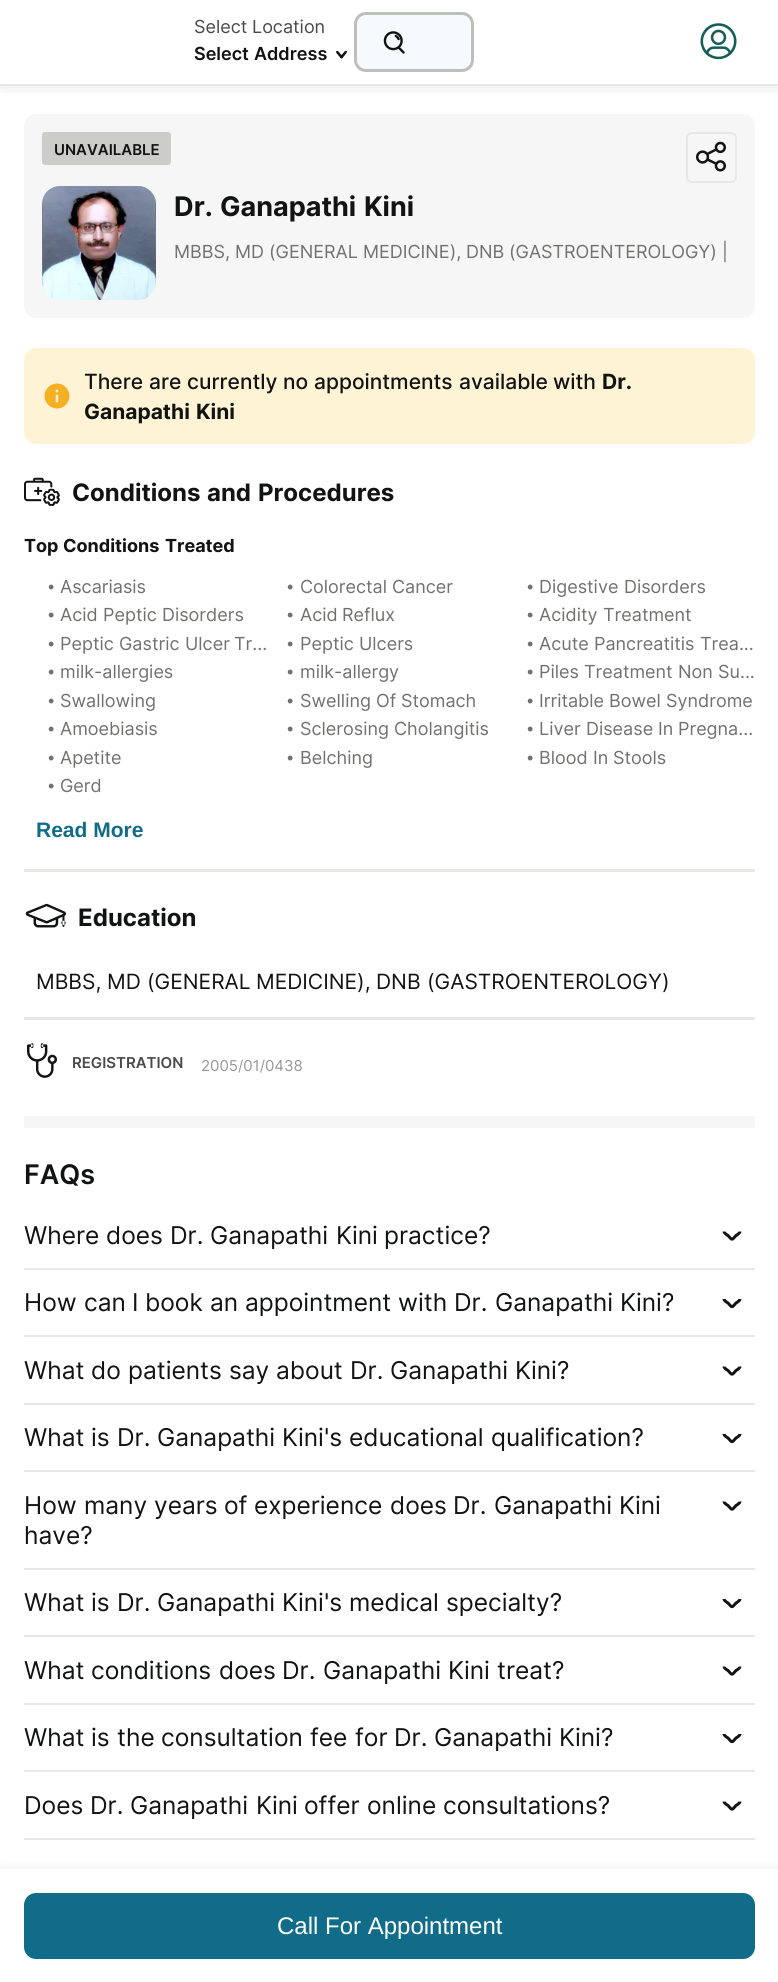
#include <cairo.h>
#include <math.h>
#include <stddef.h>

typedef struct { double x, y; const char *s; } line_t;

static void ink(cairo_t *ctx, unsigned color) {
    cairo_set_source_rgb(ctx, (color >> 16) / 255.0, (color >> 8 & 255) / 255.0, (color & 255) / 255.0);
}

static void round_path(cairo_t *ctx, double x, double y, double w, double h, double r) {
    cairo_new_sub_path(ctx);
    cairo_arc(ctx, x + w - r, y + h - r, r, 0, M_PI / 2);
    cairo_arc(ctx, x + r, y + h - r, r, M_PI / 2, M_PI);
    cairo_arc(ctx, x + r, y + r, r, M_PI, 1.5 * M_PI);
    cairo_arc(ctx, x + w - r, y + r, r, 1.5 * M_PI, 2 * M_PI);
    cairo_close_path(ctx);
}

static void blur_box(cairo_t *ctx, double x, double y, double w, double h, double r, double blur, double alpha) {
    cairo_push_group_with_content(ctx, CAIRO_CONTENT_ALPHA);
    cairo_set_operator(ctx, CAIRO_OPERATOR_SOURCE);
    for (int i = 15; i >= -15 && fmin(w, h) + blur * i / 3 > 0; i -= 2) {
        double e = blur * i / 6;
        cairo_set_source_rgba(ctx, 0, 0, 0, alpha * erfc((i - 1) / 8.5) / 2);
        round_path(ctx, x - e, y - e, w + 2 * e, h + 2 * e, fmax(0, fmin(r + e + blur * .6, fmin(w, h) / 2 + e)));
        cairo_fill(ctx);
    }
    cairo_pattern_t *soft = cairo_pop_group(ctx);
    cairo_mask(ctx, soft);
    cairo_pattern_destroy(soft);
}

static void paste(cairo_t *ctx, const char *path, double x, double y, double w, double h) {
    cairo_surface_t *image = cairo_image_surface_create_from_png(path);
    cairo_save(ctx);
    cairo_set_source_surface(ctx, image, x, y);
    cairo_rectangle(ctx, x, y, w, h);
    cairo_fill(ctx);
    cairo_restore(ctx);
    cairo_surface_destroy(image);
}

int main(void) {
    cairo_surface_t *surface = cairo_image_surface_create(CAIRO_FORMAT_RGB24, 778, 1982);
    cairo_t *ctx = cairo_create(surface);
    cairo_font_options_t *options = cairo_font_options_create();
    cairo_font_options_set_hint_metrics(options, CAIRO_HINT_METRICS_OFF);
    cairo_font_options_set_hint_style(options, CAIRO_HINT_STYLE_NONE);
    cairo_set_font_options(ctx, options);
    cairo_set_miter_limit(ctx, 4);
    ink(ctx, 0xFFFFFF);
    cairo_paint(ctx);
    cairo_save(ctx);
    cairo_rectangle(ctx, 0, 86, 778, 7);
    cairo_clip(ctx);
    ink(ctx, 0x000000);
    blur_box(ctx, 0, 3, 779, 84, 0, 7.5, 0.1);
    cairo_restore(ctx);
    cairo_select_font_face(ctx, "Inter", CAIRO_FONT_SLANT_NORMAL, CAIRO_FONT_WEIGHT_NORMAL);
    cairo_set_font_size(ctx, 18);
    ink(ctx, 0x4B4A48);
    cairo_move_to(ctx, 194, 33);
    cairo_show_text(ctx, "Select");
    cairo_move_to(ctx, 252, 33);
    cairo_show_text(ctx, "Location");
    cairo_select_font_face(ctx, "Inter SemiBold", CAIRO_FONT_SLANT_NORMAL, CAIRO_FONT_WEIGHT_NORMAL);
    ink(ctx, 0x121414);
    cairo_move_to(ctx, 194, 60);
    cairo_show_text(ctx, "Select");
    cairo_move_to(ctx, 254, 60);
    cairo_show_text(ctx, "Address");
    cairo_new_path(ctx);
    cairo_move_to(ctx, 346.5, 51);
    cairo_curve_to(ctx, 348, 52.5, 345, 54.5, 344.5, 55.5);
    cairo_curve_to(ctx, 344, 56, 342, 59.5, 340.5, 58);
    cairo_curve_to(ctx, 339, 57, 342, 54.5, 342.5, 54);
    cairo_curve_to(ctx, 343.5, 53, 345, 50, 346.5, 51);
    cairo_close_path(ctx);
    cairo_fill(ctx);
    cairo_new_path(ctx);
    cairo_move_to(ctx, 342.5, 58);
    cairo_curve_to(ctx, 341, 59.5, 339, 56, 338.5, 55.5);
    cairo_curve_to(ctx, 338, 54.5, 335, 52.5, 336.5, 51);
    cairo_curve_to(ctx, 338, 50, 339.5, 53, 340.5, 54);
    cairo_curve_to(ctx, 341, 54.5, 344, 57, 342.5, 58);
    cairo_close_path(ctx);
    cairo_fill(ctx);
    ink(ctx, 0xF5FBFD);
    round_path(ctx, 355.5, 13.5, 117, 57, 10.5);
    cairo_fill_preserve(ctx);
    ink(ctx, 0xBEBEBB);
    cairo_set_line_width(ctx, 3);
    cairo_stroke(ctx);
    paste(ctx, "media/1.png", 383, 31, 22, 23);
    paste(ctx, "media/2.png", 700, 23, 37, 37);
    ink(ctx, 0xE7E7E5);
    cairo_rectangle(ctx, 0, 84, 778, 2);
    cairo_fill(ctx);
    ink(ctx, 0xF6F6F6);
    round_path(ctx, 24, 114, 731, 204, 12);
    cairo_fill(ctx);
    ink(ctx, 0xCCCCC9);
    round_path(ctx, 42, 132, 129, 33, 3);
    cairo_fill(ctx);
    cairo_set_font_size(ctx, 15);
    ink(ctx, 0x121414);
    cairo_move_to(ctx, 54, 155);
    cairo_show_text(ctx, "UNAVAILABLE");
    round_path(ctx, 687, 133, 49, 49, 5);
    ink(ctx, 0xE7E7E5);
    cairo_set_line_width(ctx, 2);
    cairo_stroke(ctx);
    paste(ctx, "media/3.png", 696, 141, 30, 31);
    paste(ctx, "media/4.png", 42, 186, 114, 114);
    cairo_select_font_face(ctx, "Inter", CAIRO_FONT_SLANT_NORMAL, CAIRO_FONT_WEIGHT_BOLD);
    cairo_set_font_size(ctx, 27);
    ink(ctx, 0x121414);
    {
        static const line_t items[] = {
            {174, 216, "Dr."},
            {220, 216, "Ganapathi"},
            {364, 216, "Kini"},
        };
        for (size_t i = 0; i < sizeof items / sizeof *items; i++) {
            cairo_move_to(ctx, items[i].x, items[i].y);
            cairo_show_text(ctx, items[i].s);
        }
    }
    cairo_select_font_face(ctx, "Inter", CAIRO_FONT_SLANT_NORMAL, CAIRO_FONT_WEIGHT_NORMAL);
    cairo_set_font_size(ctx, 18);
    ink(ctx, 0x71716E);
    {
        static const line_t items[] = {
            {174, 258, "MBBS,"},
            {235, 258, "MD"},
            {269, 258, "(GENERAL"},
            {363, 258, "MEDICINE),"},
            {466, 258, "DNB"},
            {509, 258, "(GASTROENTEROLOGY)"},
            {722, 258, "|"},
        };
        for (size_t i = 0; i < sizeof items / sizeof *items; i++) {
            cairo_move_to(ctx, items[i].x, items[i].y);
            cairo_show_text(ctx, items[i].s);
        }
    }
    ink(ctx, 0xFFF3D6);
    round_path(ctx, 24, 348, 731, 96, 12);
    cairo_fill(ctx);
    paste(ctx, "media/5.png", 44, 383, 26, 26);
    cairo_select_font_face(ctx, "Inter Medium", CAIRO_FONT_SLANT_NORMAL, CAIRO_FONT_WEIGHT_NORMAL);
    cairo_set_font_size(ctx, 21);
    ink(ctx, 0x121414);
    {
        static const line_t items[] = {
            {84, 389, "There"},
            {149, 389, "are"},
            {187, 389, "currently"},
            {283, 389, "no"},
            {314, 389, "appointments"},
            {459, 389, "available"},
            {553, 389, "with"},
        };
        for (size_t i = 0; i < sizeof items / sizeof *items; i++) {
            cairo_move_to(ctx, items[i].x, items[i].y);
            cairo_show_text(ctx, items[i].s);
        }
    }
    cairo_select_font_face(ctx, "Inter", CAIRO_FONT_SLANT_NORMAL, CAIRO_FONT_WEIGHT_BOLD);
    {
        static const line_t items[] = {
            {602, 389, "Dr."},
            {84, 419, "Ganapathi"},
            {196, 419, "Kini"},
        };
        for (size_t i = 0; i < sizeof items / sizeof *items; i++) {
            cairo_move_to(ctx, items[i].x, items[i].y);
            cairo_show_text(ctx, items[i].s);
        }
    }
    ink(ctx, 0xBEBEBB);
    blur_box(ctx, 0, 1872, 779, 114, 0, 6, 0.6);
    ink(ctx, 0xFFFFFF);
    cairo_rectangle(ctx, 0, 1869, 778, 113);
    cairo_fill(ctx);
    ink(ctx, 0x106C89);
    round_path(ctx, 25, 1894, 729, 64, 11);
    cairo_fill_preserve(ctx);
    cairo_stroke(ctx);
    cairo_select_font_face(ctx, "Liberation Sans", CAIRO_FONT_SLANT_NORMAL, CAIRO_FONT_WEIGHT_NORMAL);
    cairo_set_font_size(ctx, 24);
    ink(ctx, 0xFFFFFF);
    cairo_move_to(ctx, 277, 1934);
    cairo_show_text(ctx, "Call For Appointment");
    paste(ctx, "media/6.png", 24, 477, 36, 29);
    cairo_select_font_face(ctx, "Inter", CAIRO_FONT_SLANT_NORMAL, CAIRO_FONT_WEIGHT_BOLD);
    ink(ctx, 0x121414);
    {
        static const line_t items[] = {
            {72, 501, "Conditions"},
            {207, 501, "and"},
            {258, 501, "Procedures"},
        };
        for (size_t i = 0; i < sizeof items / sizeof *items; i++) {
            cairo_move_to(ctx, items[i].x, items[i].y);
            cairo_show_text(ctx, items[i].s);
        }
    }
    cairo_set_font_size(ctx, 18);
    {
        static const line_t items[] = {
            {24, 552, "Top"},
            {63, 552, "Conditions"},
            {165, 552, "Treated"},
        };
        for (size_t i = 0; i < sizeof items / sizeof *items; i++) {
            cairo_move_to(ctx, items[i].x, items[i].y);
            cairo_show_text(ctx, items[i].s);
        }
    }
    cairo_select_font_face(ctx, "Liberation Sans", CAIRO_FONT_SLANT_NORMAL, CAIRO_FONT_WEIGHT_NORMAL);
    ink(ctx, 0x71716E);
    cairo_move_to(ctx, 48, 593);
    cairo_show_text(ctx, "•");
    cairo_select_font_face(ctx, "Inter", CAIRO_FONT_SLANT_NORMAL, CAIRO_FONT_WEIGHT_NORMAL);
    cairo_move_to(ctx, 60, 593);
    cairo_show_text(ctx, "Ascariasis");
    cairo_select_font_face(ctx, "Liberation Sans", CAIRO_FONT_SLANT_NORMAL, CAIRO_FONT_WEIGHT_NORMAL);
    cairo_move_to(ctx, 287, 593);
    cairo_show_text(ctx, "•");
    cairo_select_font_face(ctx, "Inter", CAIRO_FONT_SLANT_NORMAL, CAIRO_FONT_WEIGHT_NORMAL);
    cairo_move_to(ctx, 300, 593);
    cairo_show_text(ctx, "Colorectal");
    cairo_move_to(ctx, 392, 593);
    cairo_show_text(ctx, "Cancer");
    cairo_select_font_face(ctx, "Liberation Sans", CAIRO_FONT_SLANT_NORMAL, CAIRO_FONT_WEIGHT_NORMAL);
    cairo_move_to(ctx, 527, 593);
    cairo_show_text(ctx, "•");
    cairo_select_font_face(ctx, "Inter", CAIRO_FONT_SLANT_NORMAL, CAIRO_FONT_WEIGHT_NORMAL);
    cairo_move_to(ctx, 539, 593);
    cairo_show_text(ctx, "Digestive");
    cairo_move_to(ctx, 624, 593);
    cairo_show_text(ctx, "Disorders");
    cairo_select_font_face(ctx, "Liberation Sans", CAIRO_FONT_SLANT_NORMAL, CAIRO_FONT_WEIGHT_NORMAL);
    cairo_move_to(ctx, 48, 621);
    cairo_show_text(ctx, "•");
    cairo_select_font_face(ctx, "Inter", CAIRO_FONT_SLANT_NORMAL, CAIRO_FONT_WEIGHT_NORMAL);
    {
        static const line_t items[] = {
            {60, 621, "Acid"},
            {103, 621, "Peptic"},
            {162, 621, "Disorders"},
        };
        for (size_t i = 0; i < sizeof items / sizeof *items; i++) {
            cairo_move_to(ctx, items[i].x, items[i].y);
            cairo_show_text(ctx, items[i].s);
        }
    }
    cairo_select_font_face(ctx, "Liberation Sans", CAIRO_FONT_SLANT_NORMAL, CAIRO_FONT_WEIGHT_NORMAL);
    cairo_move_to(ctx, 287, 621);
    cairo_show_text(ctx, "•");
    cairo_select_font_face(ctx, "Inter", CAIRO_FONT_SLANT_NORMAL, CAIRO_FONT_WEIGHT_NORMAL);
    cairo_move_to(ctx, 300, 621);
    cairo_show_text(ctx, "Acid");
    cairo_move_to(ctx, 342, 621);
    cairo_show_text(ctx, "Reflux");
    cairo_select_font_face(ctx, "Liberation Sans", CAIRO_FONT_SLANT_NORMAL, CAIRO_FONT_WEIGHT_NORMAL);
    cairo_move_to(ctx, 527, 621);
    cairo_show_text(ctx, "•");
    cairo_select_font_face(ctx, "Inter", CAIRO_FONT_SLANT_NORMAL, CAIRO_FONT_WEIGHT_NORMAL);
    cairo_move_to(ctx, 539, 621);
    cairo_show_text(ctx, "Acidity");
    cairo_move_to(ctx, 603, 621);
    cairo_show_text(ctx, "Treatment");
    cairo_select_font_face(ctx, "Liberation Sans", CAIRO_FONT_SLANT_NORMAL, CAIRO_FONT_WEIGHT_NORMAL);
    cairo_move_to(ctx, 48, 650);
    cairo_show_text(ctx, "•");
    cairo_select_font_face(ctx, "Inter", CAIRO_FONT_SLANT_NORMAL, CAIRO_FONT_WEIGHT_NORMAL);
    {
        static const line_t items[] = {
            {60, 650, "Peptic"},
            {119, 650, "Gastric"},
            {185, 650, "Ulcer"},
            {234, 650, "Tr..."},
        };
        for (size_t i = 0; i < sizeof items / sizeof *items; i++) {
            cairo_move_to(ctx, items[i].x, items[i].y);
            cairo_show_text(ctx, items[i].s);
        }
    }
    cairo_select_font_face(ctx, "Liberation Sans", CAIRO_FONT_SLANT_NORMAL, CAIRO_FONT_WEIGHT_NORMAL);
    cairo_move_to(ctx, 287, 650);
    cairo_show_text(ctx, "•");
    cairo_select_font_face(ctx, "Inter", CAIRO_FONT_SLANT_NORMAL, CAIRO_FONT_WEIGHT_NORMAL);
    cairo_move_to(ctx, 300, 650);
    cairo_show_text(ctx, "Peptic");
    cairo_move_to(ctx, 359, 650);
    cairo_show_text(ctx, "Ulcers");
    cairo_select_font_face(ctx, "Liberation Sans", CAIRO_FONT_SLANT_NORMAL, CAIRO_FONT_WEIGHT_NORMAL);
    cairo_move_to(ctx, 527, 650);
    cairo_show_text(ctx, "•");
    cairo_select_font_face(ctx, "Inter", CAIRO_FONT_SLANT_NORMAL, CAIRO_FONT_WEIGHT_NORMAL);
    {
        static const line_t items[] = {
            {539, 650, "Acute"},
            {594, 650, "Pancreatitis"},
            {700, 650, "Trea..."},
        };
        for (size_t i = 0; i < sizeof items / sizeof *items; i++) {
            cairo_move_to(ctx, items[i].x, items[i].y);
            cairo_show_text(ctx, items[i].s);
        }
    }
    cairo_select_font_face(ctx, "Liberation Sans", CAIRO_FONT_SLANT_NORMAL, CAIRO_FONT_WEIGHT_NORMAL);
    cairo_move_to(ctx, 48, 678);
    cairo_show_text(ctx, "•");
    cairo_select_font_face(ctx, "Inter", CAIRO_FONT_SLANT_NORMAL, CAIRO_FONT_WEIGHT_NORMAL);
    cairo_move_to(ctx, 60, 678);
    cairo_show_text(ctx, "milk-allergies");
    cairo_select_font_face(ctx, "Liberation Sans", CAIRO_FONT_SLANT_NORMAL, CAIRO_FONT_WEIGHT_NORMAL);
    cairo_move_to(ctx, 287, 678);
    cairo_show_text(ctx, "•");
    cairo_select_font_face(ctx, "Inter", CAIRO_FONT_SLANT_NORMAL, CAIRO_FONT_WEIGHT_NORMAL);
    cairo_move_to(ctx, 300, 678);
    cairo_show_text(ctx, "milk-allergy");
    cairo_select_font_face(ctx, "Liberation Sans", CAIRO_FONT_SLANT_NORMAL, CAIRO_FONT_WEIGHT_NORMAL);
    cairo_move_to(ctx, 527, 678);
    cairo_show_text(ctx, "•");
    cairo_select_font_face(ctx, "Inter", CAIRO_FONT_SLANT_NORMAL, CAIRO_FONT_WEIGHT_NORMAL);
    {
        static const line_t items[] = {
            {539, 678, "Piles"},
            {584, 678, "Treatment"},
            {678, 678, "Non"},
            {718, 678, "Su..."},
        };
        for (size_t i = 0; i < sizeof items / sizeof *items; i++) {
            cairo_move_to(ctx, items[i].x, items[i].y);
            cairo_show_text(ctx, items[i].s);
        }
    }
    cairo_select_font_face(ctx, "Liberation Sans", CAIRO_FONT_SLANT_NORMAL, CAIRO_FONT_WEIGHT_NORMAL);
    cairo_move_to(ctx, 48, 707);
    cairo_show_text(ctx, "•");
    cairo_select_font_face(ctx, "Inter", CAIRO_FONT_SLANT_NORMAL, CAIRO_FONT_WEIGHT_NORMAL);
    cairo_move_to(ctx, 60, 707);
    cairo_show_text(ctx, "Swallowing");
    cairo_select_font_face(ctx, "Liberation Sans", CAIRO_FONT_SLANT_NORMAL, CAIRO_FONT_WEIGHT_NORMAL);
    cairo_move_to(ctx, 287, 707);
    cairo_show_text(ctx, "•");
    cairo_select_font_face(ctx, "Inter", CAIRO_FONT_SLANT_NORMAL, CAIRO_FONT_WEIGHT_NORMAL);
    {
        static const line_t items[] = {
            {300, 707, "Swelling"},
            {376, 707, "Of"},
            {401, 707, "Stomach"},
        };
        for (size_t i = 0; i < sizeof items / sizeof *items; i++) {
            cairo_move_to(ctx, items[i].x, items[i].y);
            cairo_show_text(ctx, items[i].s);
        }
    }
    cairo_select_font_face(ctx, "Liberation Sans", CAIRO_FONT_SLANT_NORMAL, CAIRO_FONT_WEIGHT_NORMAL);
    cairo_move_to(ctx, 527, 707);
    cairo_show_text(ctx, "•");
    cairo_select_font_face(ctx, "Inter", CAIRO_FONT_SLANT_NORMAL, CAIRO_FONT_WEIGHT_NORMAL);
    {
        static const line_t items[] = {
            {539, 707, "Irritable"},
            {609, 707, "Bowel"},
            {666, 707, "Syndrome"},
        };
        for (size_t i = 0; i < sizeof items / sizeof *items; i++) {
            cairo_move_to(ctx, items[i].x, items[i].y);
            cairo_show_text(ctx, items[i].s);
        }
    }
    cairo_select_font_face(ctx, "Liberation Sans", CAIRO_FONT_SLANT_NORMAL, CAIRO_FONT_WEIGHT_NORMAL);
    cairo_move_to(ctx, 48, 735);
    cairo_show_text(ctx, "•");
    cairo_select_font_face(ctx, "Inter", CAIRO_FONT_SLANT_NORMAL, CAIRO_FONT_WEIGHT_NORMAL);
    cairo_move_to(ctx, 60, 735);
    cairo_show_text(ctx, "Amoebiasis");
    cairo_select_font_face(ctx, "Liberation Sans", CAIRO_FONT_SLANT_NORMAL, CAIRO_FONT_WEIGHT_NORMAL);
    cairo_move_to(ctx, 287, 735);
    cairo_show_text(ctx, "•");
    cairo_select_font_face(ctx, "Inter", CAIRO_FONT_SLANT_NORMAL, CAIRO_FONT_WEIGHT_NORMAL);
    cairo_move_to(ctx, 300, 735);
    cairo_show_text(ctx, "Sclerosing");
    cairo_move_to(ctx, 394, 735);
    cairo_show_text(ctx, "Cholangitis");
    cairo_select_font_face(ctx, "Liberation Sans", CAIRO_FONT_SLANT_NORMAL, CAIRO_FONT_WEIGHT_NORMAL);
    cairo_move_to(ctx, 527, 735);
    cairo_show_text(ctx, "•");
    cairo_select_font_face(ctx, "Inter", CAIRO_FONT_SLANT_NORMAL, CAIRO_FONT_WEIGHT_NORMAL);
    {
        static const line_t items[] = {
            {539, 735, "Liver"},
            {586, 735, "Disease"},
            {658, 735, "In"},
            {678, 735, "Pregna..."},
        };
        for (size_t i = 0; i < sizeof items / sizeof *items; i++) {
            cairo_move_to(ctx, items[i].x, items[i].y);
            cairo_show_text(ctx, items[i].s);
        }
    }
    cairo_select_font_face(ctx, "Liberation Sans", CAIRO_FONT_SLANT_NORMAL, CAIRO_FONT_WEIGHT_NORMAL);
    cairo_move_to(ctx, 48, 764);
    cairo_show_text(ctx, "•");
    cairo_select_font_face(ctx, "Inter", CAIRO_FONT_SLANT_NORMAL, CAIRO_FONT_WEIGHT_NORMAL);
    cairo_move_to(ctx, 60, 764);
    cairo_show_text(ctx, "Apetite");
    cairo_select_font_face(ctx, "Liberation Sans", CAIRO_FONT_SLANT_NORMAL, CAIRO_FONT_WEIGHT_NORMAL);
    cairo_move_to(ctx, 287, 764);
    cairo_show_text(ctx, "•");
    cairo_select_font_face(ctx, "Inter", CAIRO_FONT_SLANT_NORMAL, CAIRO_FONT_WEIGHT_NORMAL);
    cairo_move_to(ctx, 300, 764);
    cairo_show_text(ctx, "Belching");
    cairo_select_font_face(ctx, "Liberation Sans", CAIRO_FONT_SLANT_NORMAL, CAIRO_FONT_WEIGHT_NORMAL);
    cairo_move_to(ctx, 527, 764);
    cairo_show_text(ctx, "•");
    cairo_select_font_face(ctx, "Inter", CAIRO_FONT_SLANT_NORMAL, CAIRO_FONT_WEIGHT_NORMAL);
    {
        static const line_t items[] = {
            {539, 764, "Blood"},
            {593, 764, "In"},
            {613, 764, "Stools"},
        };
        for (size_t i = 0; i < sizeof items / sizeof *items; i++) {
            cairo_move_to(ctx, items[i].x, items[i].y);
            cairo_show_text(ctx, items[i].s);
        }
    }
    cairo_select_font_face(ctx, "Liberation Sans", CAIRO_FONT_SLANT_NORMAL, CAIRO_FONT_WEIGHT_NORMAL);
    cairo_move_to(ctx, 48, 792);
    cairo_show_text(ctx, "•");
    cairo_select_font_face(ctx, "Inter", CAIRO_FONT_SLANT_NORMAL, CAIRO_FONT_WEIGHT_NORMAL);
    cairo_move_to(ctx, 60, 792);
    cairo_show_text(ctx, "Gerd");
    cairo_select_font_face(ctx, "Liberation Sans", CAIRO_FONT_SLANT_NORMAL, CAIRO_FONT_WEIGHT_BOLD);
    cairo_set_font_size(ctx, 21);
    ink(ctx, 0x106C89);
    cairo_move_to(ctx, 36, 837);
    cairo_show_text(ctx, "Read More");
    ink(ctx, 0xE7E7E5);
    cairo_rectangle(ctx, 24, 869, 731, 3);
    cairo_fill(ctx);
    paste(ctx, "media/7.png", 25, 903, 41, 25);
    cairo_select_font_face(ctx, "Inter", CAIRO_FONT_SLANT_NORMAL, CAIRO_FONT_WEIGHT_BOLD);
    cairo_set_font_size(ctx, 24);
    ink(ctx, 0x121414);
    cairo_move_to(ctx, 78, 926);
    cairo_show_text(ctx, "Education");
    cairo_select_font_face(ctx, "Inter", CAIRO_FONT_SLANT_NORMAL, CAIRO_FONT_WEIGHT_NORMAL);
    cairo_set_font_size(ctx, 21);
    {
        static const line_t items[] = {
            {36, 989, "MBBS,"},
            {107, 989, "MD"},
            {147, 989, "(GENERAL"},
            {256, 989, "MEDICINE),"},
            {376, 989, "DNB"},
            {427, 989, "(GASTROENTEROLOGY)"},
        };
        for (size_t i = 0; i < sizeof items / sizeof *items; i++) {
            cairo_move_to(ctx, items[i].x, items[i].y);
            cairo_show_text(ctx, items[i].s);
        }
    }
    ink(ctx, 0xE7E7E5);
    cairo_rectangle(ctx, 24, 1017, 731, 3);
    cairo_fill(ctx);
    paste(ctx, "media/8.png", 27, 1043, 30, 35);
    cairo_select_font_face(ctx, "Inter SemiBold", CAIRO_FONT_SLANT_NORMAL, CAIRO_FONT_WEIGHT_NORMAL);
    cairo_set_font_size(ctx, 15);
    ink(ctx, 0x4B4A48);
    cairo_move_to(ctx, 72, 1068);
    cairo_show_text(ctx, "REGISTRATION");
    cairo_select_font_face(ctx, "Inter", CAIRO_FONT_SLANT_NORMAL, CAIRO_FONT_WEIGHT_NORMAL);
    ink(ctx, 0x989795);
    cairo_move_to(ctx, 201, 1071);
    cairo_show_text(ctx, "2005/01/0438");
    ink(ctx, 0xF6F6F6);
    cairo_rectangle(ctx, 24, 1116, 731, 12);
    cairo_fill(ctx);
    cairo_select_font_face(ctx, "Inter SemiBold", CAIRO_FONT_SLANT_NORMAL, CAIRO_FONT_WEIGHT_NORMAL);
    cairo_set_font_size(ctx, 27);
    ink(ctx, 0x121414);
    cairo_move_to(ctx, 24, 1184);
    cairo_show_text(ctx, "FAQs");
    ink(ctx, 0xE7E7E5);
    cairo_rectangle(ctx, 24, 1268, 731, 2);
    cairo_fill(ctx);
    cairo_select_font_face(ctx, "Inter", CAIRO_FONT_SLANT_NORMAL, CAIRO_FONT_WEIGHT_NORMAL);
    cairo_set_font_size(ctx, 24.5);
    ink(ctx, 0x121414);
    {
        static const line_t items[] = {
            {24, 1244, "Where"},
            {106, 1244, "does"},
            {170, 1244, "Dr."},
            {210, 1244, "Ganapathi"},
            {336, 1244, "Kini"},
            {384, 1244, "practice?"},
        };
        for (size_t i = 0; i < sizeof items / sizeof *items; i++) {
            cairo_move_to(ctx, items[i].x, items[i].y);
            cairo_show_text(ctx, items[i].s);
        }
    }
    cairo_new_path(ctx);
    cairo_move_to(ctx, 740, 1231.5);
    cairo_curve_to(ctx, 740, 1233, 737, 1235, 736, 1235.5);
    cairo_curve_to(ctx, 731.5, 1240.5, 732.5, 1240.5, 728, 1235.5);
    cairo_curve_to(ctx, 727, 1235, 724, 1233, 724, 1231.5);
    cairo_set_line_width(ctx, 3);
    cairo_stroke(ctx);
    ink(ctx, 0xE7E7E5);
    cairo_rectangle(ctx, 24, 1335, 731, 2);
    cairo_fill(ctx);
    ink(ctx, 0x121414);
    {
        static const line_t items[] = {
            {24, 1311, "How"},
            {84, 1311, "can"},
            {132, 1311, "I"},
            {145, 1311, "book"},
            {210, 1311, "an"},
            {245, 1311, "appointment"},
            {398, 1311, "with"},
            {454, 1311, "Dr."},
            {495, 1311, "Ganapathi"},
            {620, 1311, "Kini?"},
        };
        for (size_t i = 0; i < sizeof items / sizeof *items; i++) {
            cairo_move_to(ctx, items[i].x, items[i].y);
            cairo_show_text(ctx, items[i].s);
        }
    }
    cairo_new_path(ctx);
    cairo_move_to(ctx, 740, 1299);
    cairo_curve_to(ctx, 740, 1300.5, 737, 1302.5, 736, 1303);
    cairo_curve_to(ctx, 731.5, 1308, 732.5, 1308, 728, 1303);
    cairo_curve_to(ctx, 727, 1302.5, 724, 1300.5, 724, 1299);
    cairo_stroke(ctx);
    ink(ctx, 0xE7E7E5);
    cairo_rectangle(ctx, 24, 1403, 731, 2);
    cairo_fill(ctx);
    ink(ctx, 0x121414);
    {
        static const line_t items[] = {
            {24, 1379, "What"},
            {91, 1379, "do"},
            {128, 1379, "patients"},
            {229, 1379, "say"},
            {276, 1379, "about"},
            {350, 1379, "Dr."},
            {390, 1379, "Ganapathi"},
            {515, 1379, "Kini?"},
        };
        for (size_t i = 0; i < sizeof items / sizeof *items; i++) {
            cairo_move_to(ctx, items[i].x, items[i].y);
            cairo_show_text(ctx, items[i].s);
        }
    }
    cairo_new_path(ctx);
    cairo_move_to(ctx, 740, 1366.5);
    cairo_curve_to(ctx, 740, 1368, 737, 1370, 736, 1370.5);
    cairo_curve_to(ctx, 731.5, 1375.5, 732.5, 1375.5, 728, 1370.5);
    cairo_curve_to(ctx, 727, 1370, 724, 1368, 724, 1366.5);
    cairo_stroke(ctx);
    ink(ctx, 0xE7E7E5);
    cairo_rectangle(ctx, 24, 1470, 731, 2);
    cairo_fill(ctx);
    ink(ctx, 0x121414);
    {
        static const line_t items[] = {
            {24, 1446, "What"},
            {91, 1446, "is"},
            {117, 1446, "Dr."},
            {157, 1446, "Ganapathi"},
            {282, 1446, "Kini's"},
            {349, 1446, "educational"},
            {491, 1446, "qualification?"},
        };
        for (size_t i = 0; i < sizeof items / sizeof *items; i++) {
            cairo_move_to(ctx, items[i].x, items[i].y);
            cairo_show_text(ctx, items[i].s);
        }
    }
    cairo_new_path(ctx);
    cairo_move_to(ctx, 740, 1434);
    cairo_curve_to(ctx, 740, 1435.5, 737, 1437.5, 736, 1438);
    cairo_curve_to(ctx, 731.5, 1443, 732.5, 1443, 728, 1438);
    cairo_curve_to(ctx, 727, 1437.5, 724, 1435.5, 724, 1434);
    cairo_stroke(ctx);
    ink(ctx, 0xE7E7E5);
    cairo_rectangle(ctx, 24, 1568, 731, 2);
    cairo_fill(ctx);
    ink(ctx, 0x121414);
    {
        static const line_t items[] = {
            {24, 1514, "How"},
            {84, 1514, "many"},
            {154, 1514, "years"},
            {224, 1514, "of"},
            {254, 1514, "experience"},
            {390, 1514, "does"},
            {453, 1514, "Dr."},
            {494, 1514, "Ganapathi"},
            {619, 1514, "Kini"},
            {24, 1544, "have?"},
        };
        for (size_t i = 0; i < sizeof items / sizeof *items; i++) {
            cairo_move_to(ctx, items[i].x, items[i].y);
            cairo_show_text(ctx, items[i].s);
        }
    }
    cairo_new_path(ctx);
    cairo_move_to(ctx, 740, 1501.5);
    cairo_curve_to(ctx, 740, 1503, 737, 1505, 736, 1505.5);
    cairo_curve_to(ctx, 731.5, 1510.5, 732.5, 1510.5, 728, 1505.5);
    cairo_curve_to(ctx, 727, 1505, 724, 1503, 724, 1501.5);
    cairo_stroke(ctx);
    ink(ctx, 0xE7E7E5);
    cairo_rectangle(ctx, 24, 1635, 731, 2);
    cairo_fill(ctx);
    ink(ctx, 0x121414);
    {
        static const line_t items[] = {
            {24, 1611, "What"},
            {91, 1611, "is"},
            {117, 1611, "Dr."},
            {157, 1611, "Ganapathi"},
            {282, 1611, "Kini's"},
            {349, 1611, "medical"},
            {446, 1611, "specialty?"},
        };
        for (size_t i = 0; i < sizeof items / sizeof *items; i++) {
            cairo_move_to(ctx, items[i].x, items[i].y);
            cairo_show_text(ctx, items[i].s);
        }
    }
    cairo_new_path(ctx);
    cairo_move_to(ctx, 740, 1599);
    cairo_curve_to(ctx, 740, 1600.5, 737, 1602.5, 736, 1603);
    cairo_curve_to(ctx, 731.5, 1608, 732.5, 1608, 728, 1603);
    cairo_curve_to(ctx, 727, 1602.5, 724, 1600.5, 724, 1599);
    cairo_stroke(ctx);
    ink(ctx, 0xE7E7E5);
    cairo_rectangle(ctx, 24, 1703, 731, 2);
    cairo_fill(ctx);
    ink(ctx, 0x121414);
    {
        static const line_t items[] = {
            {24, 1679, "What"},
            {91, 1679, "conditions"},
            {219, 1679, "does"},
            {282, 1679, "Dr."},
            {323, 1679, "Ganapathi"},
            {448, 1679, "Kini"},
            {497, 1679, "treat?"},
        };
        for (size_t i = 0; i < sizeof items / sizeof *items; i++) {
            cairo_move_to(ctx, items[i].x, items[i].y);
            cairo_show_text(ctx, items[i].s);
        }
    }
    cairo_new_path(ctx);
    cairo_move_to(ctx, 740, 1666.5);
    cairo_curve_to(ctx, 740, 1668, 737, 1670, 736, 1670.5);
    cairo_curve_to(ctx, 731.5, 1675.5, 732.5, 1675.5, 728, 1670.5);
    cairo_curve_to(ctx, 727, 1670, 724, 1668, 724, 1666.5);
    cairo_stroke(ctx);
    ink(ctx, 0xE7E7E5);
    cairo_rectangle(ctx, 24, 1770, 731, 2);
    cairo_fill(ctx);
    ink(ctx, 0x121414);
    {
        static const line_t items[] = {
            {24, 1746, "What"},
            {91, 1746, "is"},
            {117, 1746, "the"},
            {161, 1746, "consultation"},
            {310, 1746, "fee"},
            {355, 1746, "for"},
            {394, 1746, "Dr."},
            {434, 1746, "Ganapathi"},
            {559, 1746, "Kini?"},
        };
        for (size_t i = 0; i < sizeof items / sizeof *items; i++) {
            cairo_move_to(ctx, items[i].x, items[i].y);
            cairo_show_text(ctx, items[i].s);
        }
    }
    cairo_new_path(ctx);
    cairo_move_to(ctx, 740, 1734);
    cairo_curve_to(ctx, 740, 1735.5, 737, 1737.5, 736, 1738);
    cairo_curve_to(ctx, 731.5, 1743, 732.5, 1743, 728, 1738);
    cairo_curve_to(ctx, 727, 1737.5, 724, 1735.5, 724, 1734);
    cairo_stroke(ctx);
    ink(ctx, 0xE7E7E5);
    cairo_rectangle(ctx, 24, 1838, 731, 2);
    cairo_fill(ctx);
    ink(ctx, 0x121414);
    {
        static const line_t items[] = {
            {24, 1814, "Does"},
            {90, 1814, "Dr."},
            {130, 1814, "Ganapathi"},
            {256, 1814, "Kini"},
            {304, 1814, "offer"},
            {367, 1814, "online"},
            {443, 1814, "consultations?"},
        };
        for (size_t i = 0; i < sizeof items / sizeof *items; i++) {
            cairo_move_to(ctx, items[i].x, items[i].y);
            cairo_show_text(ctx, items[i].s);
        }
    }
    cairo_new_path(ctx);
    cairo_move_to(ctx, 740, 1801.5);
    cairo_curve_to(ctx, 740, 1803, 737, 1805, 736, 1805.5);
    cairo_curve_to(ctx, 731.5, 1810.5, 732.5, 1810.5, 728, 1805.5);
    cairo_curve_to(ctx, 727, 1805, 724, 1803, 724, 1801.5);
    cairo_stroke(ctx);
    cairo_surface_write_to_png(surface, "image.png");
    cairo_font_options_destroy(options);
    cairo_destroy(ctx);
    cairo_surface_destroy(surface);
    return 0;
}
